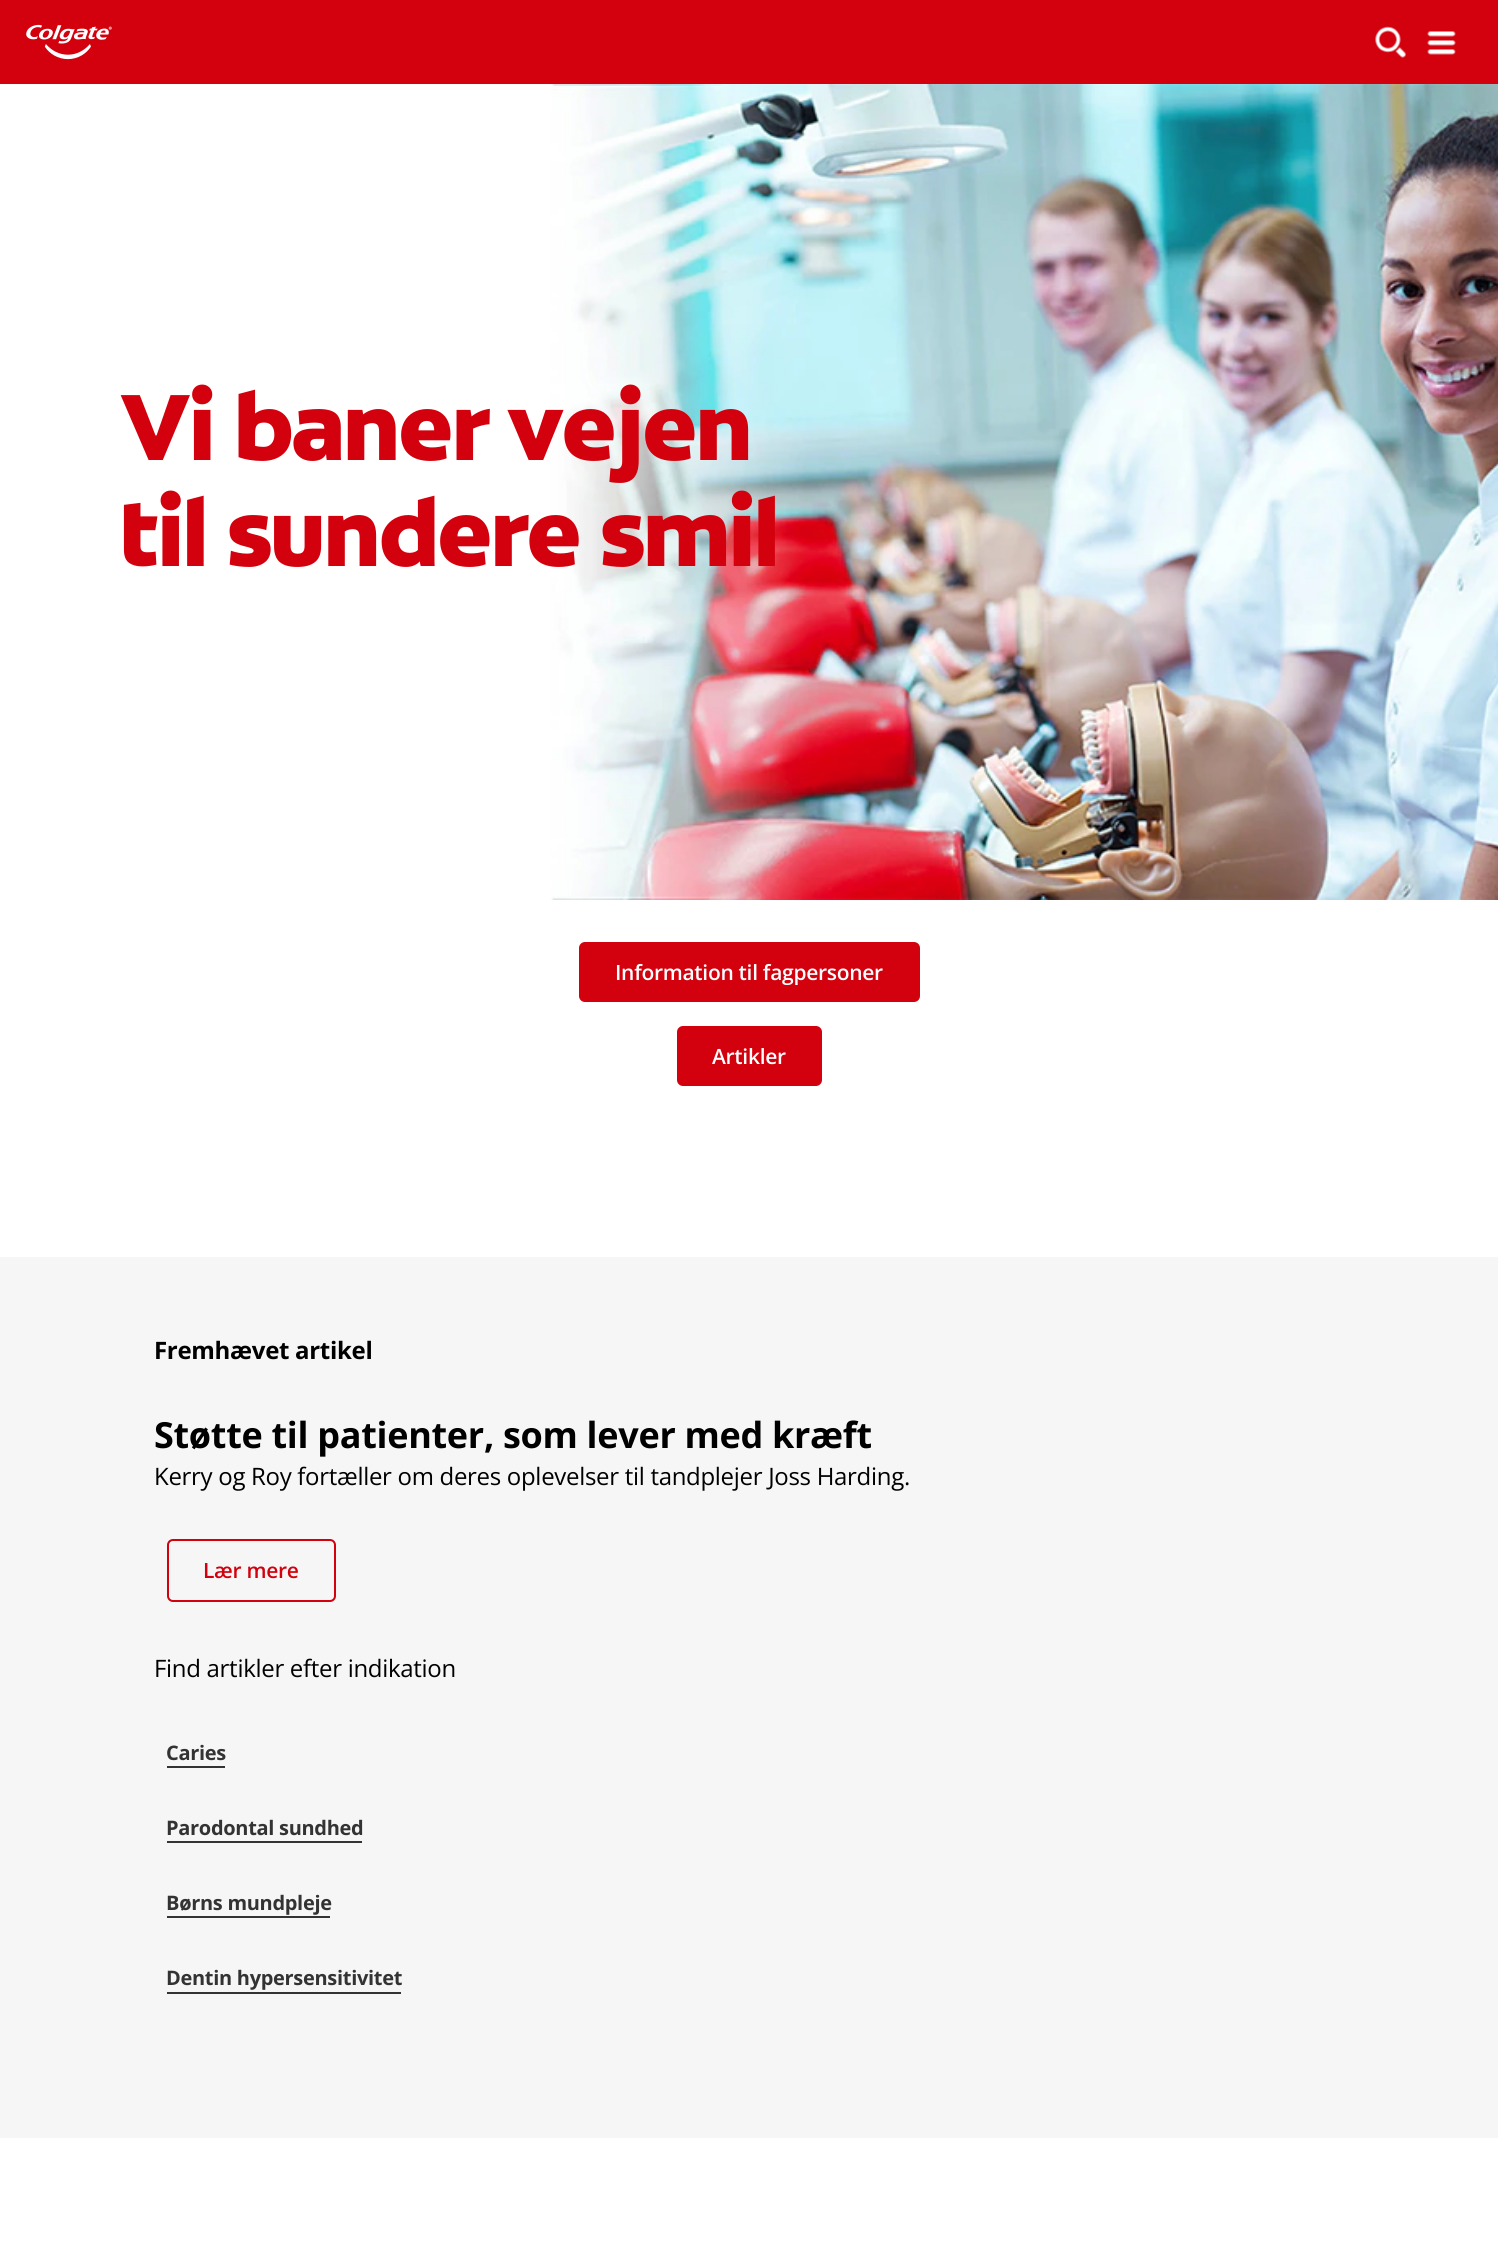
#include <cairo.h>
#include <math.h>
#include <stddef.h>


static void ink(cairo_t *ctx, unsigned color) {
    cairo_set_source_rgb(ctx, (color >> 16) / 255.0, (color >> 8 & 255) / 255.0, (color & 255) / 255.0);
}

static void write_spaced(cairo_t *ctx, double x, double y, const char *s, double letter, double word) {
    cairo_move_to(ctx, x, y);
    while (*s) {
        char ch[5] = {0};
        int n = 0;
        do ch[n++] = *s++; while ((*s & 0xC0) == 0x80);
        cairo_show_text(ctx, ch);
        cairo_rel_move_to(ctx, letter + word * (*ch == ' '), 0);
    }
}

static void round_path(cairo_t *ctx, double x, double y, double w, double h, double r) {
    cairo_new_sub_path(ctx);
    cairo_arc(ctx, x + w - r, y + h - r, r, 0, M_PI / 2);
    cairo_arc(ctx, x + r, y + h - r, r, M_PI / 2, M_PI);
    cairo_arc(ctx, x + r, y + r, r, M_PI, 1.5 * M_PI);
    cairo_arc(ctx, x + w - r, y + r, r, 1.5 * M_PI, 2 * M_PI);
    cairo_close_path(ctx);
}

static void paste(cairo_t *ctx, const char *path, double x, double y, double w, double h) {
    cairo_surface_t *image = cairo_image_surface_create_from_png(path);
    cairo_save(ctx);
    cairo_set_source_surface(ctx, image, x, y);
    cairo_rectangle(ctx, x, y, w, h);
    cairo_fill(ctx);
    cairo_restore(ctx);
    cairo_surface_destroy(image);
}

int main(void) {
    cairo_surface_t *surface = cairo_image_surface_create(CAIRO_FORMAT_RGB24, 1498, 2253);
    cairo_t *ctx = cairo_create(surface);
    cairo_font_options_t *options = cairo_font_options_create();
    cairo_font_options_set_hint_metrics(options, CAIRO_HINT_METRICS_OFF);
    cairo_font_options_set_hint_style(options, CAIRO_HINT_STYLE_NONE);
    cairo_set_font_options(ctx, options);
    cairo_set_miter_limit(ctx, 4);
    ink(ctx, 0xFFFFFF);
    cairo_paint(ctx);
    ink(ctx, 0xD2010D);
    cairo_rectangle(ctx, 0, 0, 1498, 84);
    cairo_fill(ctx);
    paste(ctx, "media/1.png", 26, 24, 86, 36);
    paste(ctx, "media/2.png", 1375, 26, 31, 32);
    paste(ctx, "media/3.png", 1427, 31, 29, 24);
    paste(ctx, "media/4.png", 551, 84, 947, 816);
    cairo_select_font_face(ctx, "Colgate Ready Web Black", CAIRO_FONT_SLANT_NORMAL, CAIRO_FONT_WEIGHT_NORMAL);
    cairo_set_font_size(ctx, 96);
    write_spaced(ctx, 120, 460, "Vi baner vejen", -1.9, 0);
    write_spaced(ctx, 120, 566, "til sundere smil", -1.9, 1);
    round_path(ctx, 579, 942, 341, 60, 6);
    cairo_fill(ctx);
    cairo_select_font_face(ctx, "Open Sans SemiBold", CAIRO_FONT_SLANT_NORMAL, CAIRO_FONT_WEIGHT_NORMAL);
    cairo_set_font_size(ctx, 21);
    ink(ctx, 0xFFFFFF);
    write_spaced(ctx, 615, 980, "Information til fagpersoner", -0.3, 0);
    ink(ctx, 0xD2010D);
    round_path(ctx, 677, 1026, 145, 60, 6);
    cairo_fill(ctx);
    ink(ctx, 0xFFFFFF);
    write_spaced(ctx, 712, 1064, "Artikler", -0.3, 0);
    ink(ctx, 0xF6F6F6);
    cairo_rectangle(ctx, 0, 1257, 1498, 881);
    cairo_fill(ctx);
    cairo_select_font_face(ctx, "Open Sans", CAIRO_FONT_SLANT_NORMAL, CAIRO_FONT_WEIGHT_BOLD);
    cairo_set_font_size(ctx, 24);
    ink(ctx, 0x000000);
    write_spaced(ctx, 154, 1359, "Fremhævet artikel", -0.3, 0);
    cairo_set_font_size(ctx, 36);
    write_spaced(ctx, 154, 1448, "Støtte til patienter, som lever med kræft", -0.3, 0);
    cairo_select_font_face(ctx, "Open Sans", CAIRO_FONT_SLANT_NORMAL, CAIRO_FONT_WEIGHT_NORMAL);
    cairo_set_font_size(ctx, 24);
    write_spaced(ctx, 154, 1485, "Kerry og Roy fortæller om deres oplevelser til tandplejer Joss Harding.", -0.3, 0);
    round_path(ctx, 168, 1540, 167, 61, 5);
    ink(ctx, 0xD2010D);
    cairo_stroke(ctx);
    cairo_select_font_face(ctx, "Open Sans SemiBold", CAIRO_FONT_SLANT_NORMAL, CAIRO_FONT_WEIGHT_NORMAL);
    cairo_set_font_size(ctx, 21);
    write_spaced(ctx, 203, 1578, "Lær mere", -0.3, 0);
    cairo_select_font_face(ctx, "Open Sans", CAIRO_FONT_SLANT_NORMAL, CAIRO_FONT_WEIGHT_NORMAL);
    cairo_set_font_size(ctx, 24);
    ink(ctx, 0x000000);
    write_spaced(ctx, 154, 1677, "Find artikler efter indikation", -0.3, 0);
    cairo_select_font_face(ctx, "Open Sans", CAIRO_FONT_SLANT_NORMAL, CAIRO_FONT_WEIGHT_BOLD);
    cairo_set_font_size(ctx, 20);
    ink(ctx, 0x333333);
    write_spaced(ctx, 166, 1760, "Caries", -0.3, 0);
    cairo_rectangle(ctx, 167, 1766, 58, 2);
    cairo_fill(ctx);
    write_spaced(ctx, 166, 1835, "Parodontal sundhed", -0.3, 0);
    cairo_rectangle(ctx, 167, 1841, 195, 2);
    cairo_fill(ctx);
    write_spaced(ctx, 166, 1910, "Børns mundpleje", -0.3, 0);
    cairo_rectangle(ctx, 167, 1916, 163, 2);
    cairo_fill(ctx);
    write_spaced(ctx, 166, 1985, "Dentin hypersensitivitet", -0.3, 0);
    cairo_rectangle(ctx, 167, 1992, 234, 2);
    cairo_fill(ctx);
    cairo_surface_write_to_png(surface, "image.png");
    cairo_font_options_destroy(options);
    cairo_destroy(ctx);
    cairo_surface_destroy(surface);
    return 0;
}
